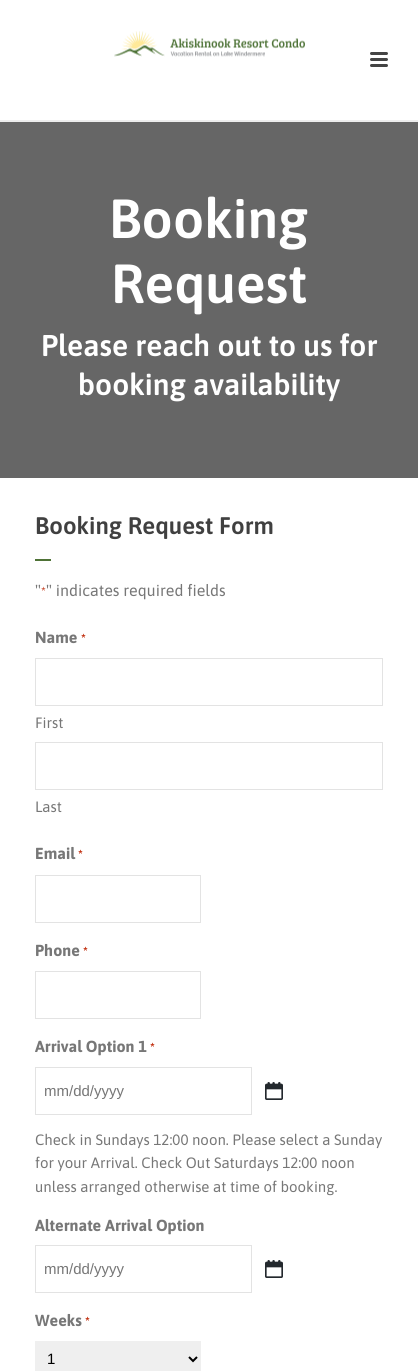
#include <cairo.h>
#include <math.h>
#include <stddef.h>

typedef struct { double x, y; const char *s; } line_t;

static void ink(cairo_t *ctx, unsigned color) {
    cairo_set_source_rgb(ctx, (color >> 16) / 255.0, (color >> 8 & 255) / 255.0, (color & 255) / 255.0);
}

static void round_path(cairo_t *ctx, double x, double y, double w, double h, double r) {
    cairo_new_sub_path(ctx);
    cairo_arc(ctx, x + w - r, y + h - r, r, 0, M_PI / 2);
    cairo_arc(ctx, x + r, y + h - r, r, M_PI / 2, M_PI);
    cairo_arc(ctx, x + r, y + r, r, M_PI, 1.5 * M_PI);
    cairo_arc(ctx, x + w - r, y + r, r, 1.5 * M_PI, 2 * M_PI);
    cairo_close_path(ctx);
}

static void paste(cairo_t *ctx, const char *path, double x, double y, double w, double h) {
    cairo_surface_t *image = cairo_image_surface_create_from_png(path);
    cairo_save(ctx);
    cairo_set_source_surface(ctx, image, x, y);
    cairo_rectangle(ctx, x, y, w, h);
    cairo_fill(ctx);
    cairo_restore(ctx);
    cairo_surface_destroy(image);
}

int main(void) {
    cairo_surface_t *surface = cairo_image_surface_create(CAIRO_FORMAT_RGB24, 418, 1371);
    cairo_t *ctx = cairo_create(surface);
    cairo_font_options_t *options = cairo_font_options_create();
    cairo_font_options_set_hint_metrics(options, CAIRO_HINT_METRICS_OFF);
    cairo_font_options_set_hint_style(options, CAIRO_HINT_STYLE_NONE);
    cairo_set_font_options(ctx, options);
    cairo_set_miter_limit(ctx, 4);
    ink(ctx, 0xFFFFFF);
    cairo_paint(ctx);
    ink(ctx, 0xEDEDED);
    cairo_rectangle(ctx, 0, 120, 418, 2);
    cairo_fill(ctx);
    paste(ctx, "media/1.png", 114, 31, 191, 26);
    ink(ctx, 0x444444);
    round_path(ctx, 370, 52, 18, 3, 1.5);
    cairo_fill(ctx);
    round_path(ctx, 370, 58, 18, 3, 1.5);
    cairo_fill(ctx);
    round_path(ctx, 370, 64, 18, 3, 1.5);
    cairo_fill(ctx);
    ink(ctx, 0x666666);
    cairo_rectangle(ctx, 0, 122, 418, 356);
    cairo_fill(ctx);
    cairo_select_font_face(ctx, "Asap SemiBold", CAIRO_FONT_SLANT_NORMAL, CAIRO_FONT_WEIGHT_NORMAL);
    cairo_set_font_size(ctx, 55);
    ink(ctx, 0xFFFFFF);
    cairo_move_to(ctx, 109, 238);
    cairo_show_text(ctx, "Booking");
    cairo_move_to(ctx, 111, 303);
    cairo_show_text(ctx, "Request");
    cairo_set_font_size(ctx, 30);
    cairo_move_to(ctx, 41, 356);
    cairo_show_text(ctx, "Please reach out to us for");
    cairo_move_to(ctx, 78, 395);
    cairo_show_text(ctx, "booking availability");
    cairo_set_font_size(ctx, 24);
    ink(ctx, 0x404040);
    cairo_move_to(ctx, 35, 534);
    cairo_show_text(ctx, "Booking Request Form");
    ink(ctx, 0x4E7236);
    cairo_rectangle(ctx, 35, 559, 16, 2);
    cairo_fill(ctx);
    cairo_select_font_face(ctx, "Asap", CAIRO_FONT_SLANT_NORMAL, CAIRO_FONT_WEIGHT_NORMAL);
    cairo_set_font_size(ctx, 16);
    ink(ctx, 0x777777);
    cairo_move_to(ctx, 35, 596);
    cairo_show_text(ctx, "\"");
    cairo_set_font_size(ctx, 13);
    ink(ctx, 0xC02B0A);
    cairo_move_to(ctx, 41, 596);
    cairo_show_text(ctx, "*");
    cairo_set_font_size(ctx, 16);
    ink(ctx, 0x777777);
    cairo_move_to(ctx, 46, 596);
    cairo_show_text(ctx, "\" indicates required fields");
    cairo_select_font_face(ctx, "Asap", CAIRO_FONT_SLANT_NORMAL, CAIRO_FONT_WEIGHT_BOLD);
    cairo_move_to(ctx, 35, 643);
    cairo_show_text(ctx, "Name");
    cairo_set_font_size(ctx, 13);
    ink(ctx, 0xC02B0A);
    cairo_move_to(ctx, 81, 643);
    cairo_show_text(ctx, "*");
    cairo_rectangle(ctx, 35.5, 658.5, 347, 47);
    ink(ctx, 0xE3E3E3);
    cairo_set_line_width(ctx, 1);
    cairo_stroke(ctx);
    cairo_select_font_face(ctx, "Asap", CAIRO_FONT_SLANT_NORMAL, CAIRO_FONT_WEIGHT_NORMAL);
    cairo_set_font_size(ctx, 15);
    ink(ctx, 0x777777);
    cairo_move_to(ctx, 35, 728);
    cairo_show_text(ctx, "First");
    cairo_rectangle(ctx, 35.5, 742.5, 347, 47);
    ink(ctx, 0xE3E3E3);
    cairo_stroke(ctx);
    ink(ctx, 0x777777);
    cairo_move_to(ctx, 35, 812);
    cairo_show_text(ctx, "Last");
    cairo_select_font_face(ctx, "Asap", CAIRO_FONT_SLANT_NORMAL, CAIRO_FONT_WEIGHT_BOLD);
    cairo_set_font_size(ctx, 16);
    cairo_move_to(ctx, 35, 859);
    cairo_show_text(ctx, "Email");
    cairo_set_font_size(ctx, 13);
    ink(ctx, 0xC02B0A);
    cairo_move_to(ctx, 78, 859);
    cairo_show_text(ctx, "*");
    cairo_rectangle(ctx, 35.5, 875.5, 165, 47);
    ink(ctx, 0xE3E3E3);
    cairo_stroke(ctx);
    cairo_set_font_size(ctx, 16);
    ink(ctx, 0x777777);
    cairo_move_to(ctx, 35, 956);
    cairo_show_text(ctx, "Phone");
    cairo_set_font_size(ctx, 13);
    ink(ctx, 0xC02B0A);
    cairo_move_to(ctx, 83, 956);
    cairo_show_text(ctx, "*");
    cairo_rectangle(ctx, 35.5, 971.5, 165, 47);
    ink(ctx, 0xE3E3E3);
    cairo_stroke(ctx);
    cairo_set_font_size(ctx, 16);
    ink(ctx, 0x777777);
    cairo_move_to(ctx, 35, 1052);
    cairo_show_text(ctx, "Arrival Option 1");
    cairo_set_font_size(ctx, 13);
    ink(ctx, 0xC02B0A);
    cairo_move_to(ctx, 150, 1052);
    cairo_show_text(ctx, "*");
    cairo_rectangle(ctx, 35.5, 1067.5, 216, 47);
    ink(ctx, 0xE3E3E3);
    cairo_stroke(ctx);
    cairo_save(ctx);
    cairo_rectangle(ctx, 44, 1082, 199, 17);
    cairo_clip(ctx);
    cairo_select_font_face(ctx, "Liberation Sans", CAIRO_FONT_SLANT_NORMAL, CAIRO_FONT_WEIGHT_NORMAL);
    cairo_set_font_size(ctx, 15);
    ink(ctx, 0x777777);
    cairo_move_to(ctx, 44, 1096);
    cairo_show_text(ctx, "mm/dd/yyyy");
    cairo_restore(ctx);
    paste(ctx, "media/2.png", 265, 1082, 18, 18);
    cairo_select_font_face(ctx, "Asap", CAIRO_FONT_SLANT_NORMAL, CAIRO_FONT_WEIGHT_NORMAL);
    cairo_set_font_size(ctx, 15);
    ink(ctx, 0x777777);
    {
        static const line_t items[] = {
            {35, 1145, "Check in Sundays 12:00 noon. Please select a Sunday"},
            {35, 1168, "for your Arrival. Check Out Saturdays 12:00 noon"},
            {35, 1192, "unless arranged otherwise at time of booking."},
        };
        for (size_t i = 0; i < sizeof items / sizeof *items; i++) {
            cairo_move_to(ctx, items[i].x, items[i].y);
            cairo_show_text(ctx, items[i].s);
        }
    }
    cairo_select_font_face(ctx, "Asap", CAIRO_FONT_SLANT_NORMAL, CAIRO_FONT_WEIGHT_BOLD);
    cairo_set_font_size(ctx, 16);
    cairo_move_to(ctx, 35, 1231);
    cairo_show_text(ctx, "Alternate Arrival Option");
    cairo_rectangle(ctx, 35.5, 1245.5, 216, 47);
    ink(ctx, 0xE3E3E3);
    cairo_stroke(ctx);
    cairo_save(ctx);
    cairo_rectangle(ctx, 44, 1260, 199, 17);
    cairo_clip(ctx);
    cairo_select_font_face(ctx, "Liberation Sans", CAIRO_FONT_SLANT_NORMAL, CAIRO_FONT_WEIGHT_NORMAL);
    cairo_set_font_size(ctx, 15);
    ink(ctx, 0x777777);
    cairo_move_to(ctx, 44, 1274);
    cairo_show_text(ctx, "mm/dd/yyyy");
    cairo_restore(ctx);
    paste(ctx, "media/2.png", 265, 1260, 18, 18);
    ink(ctx, 0x777777);
    cairo_move_to(ctx, 35, 1326);
    cairo_show_text(ctx, "Weeks");
    cairo_set_font_size(ctx, 13);
    ink(ctx, 0xC02B0A);
    cairo_move_to(ctx, 85, 1326);
    cairo_show_text(ctx, "*");
    ink(ctx, 0xEFEFEF);
    cairo_rectangle(ctx, 35, 1341, 166, 30);
    cairo_fill(ctx);
    cairo_new_path(ctx);
    cairo_move_to(ctx, 189, 1357);
    cairo_line_to(ctx, 193, 1361);
    cairo_line_to(ctx, 197, 1357);
    ink(ctx, 0x000000);
    cairo_set_line_width(ctx, 2);
    cairo_stroke(ctx);
    cairo_select_font_face(ctx, "Liberation Sans", CAIRO_FONT_SLANT_NORMAL, CAIRO_FONT_WEIGHT_NORMAL);
    cairo_set_font_size(ctx, 15);
    cairo_move_to(ctx, 47, 1364);
    cairo_show_text(ctx, "1");
    cairo_surface_write_to_png(surface, "image.png");
    cairo_font_options_destroy(options);
    cairo_destroy(ctx);
    cairo_surface_destroy(surface);
    return 0;
}
